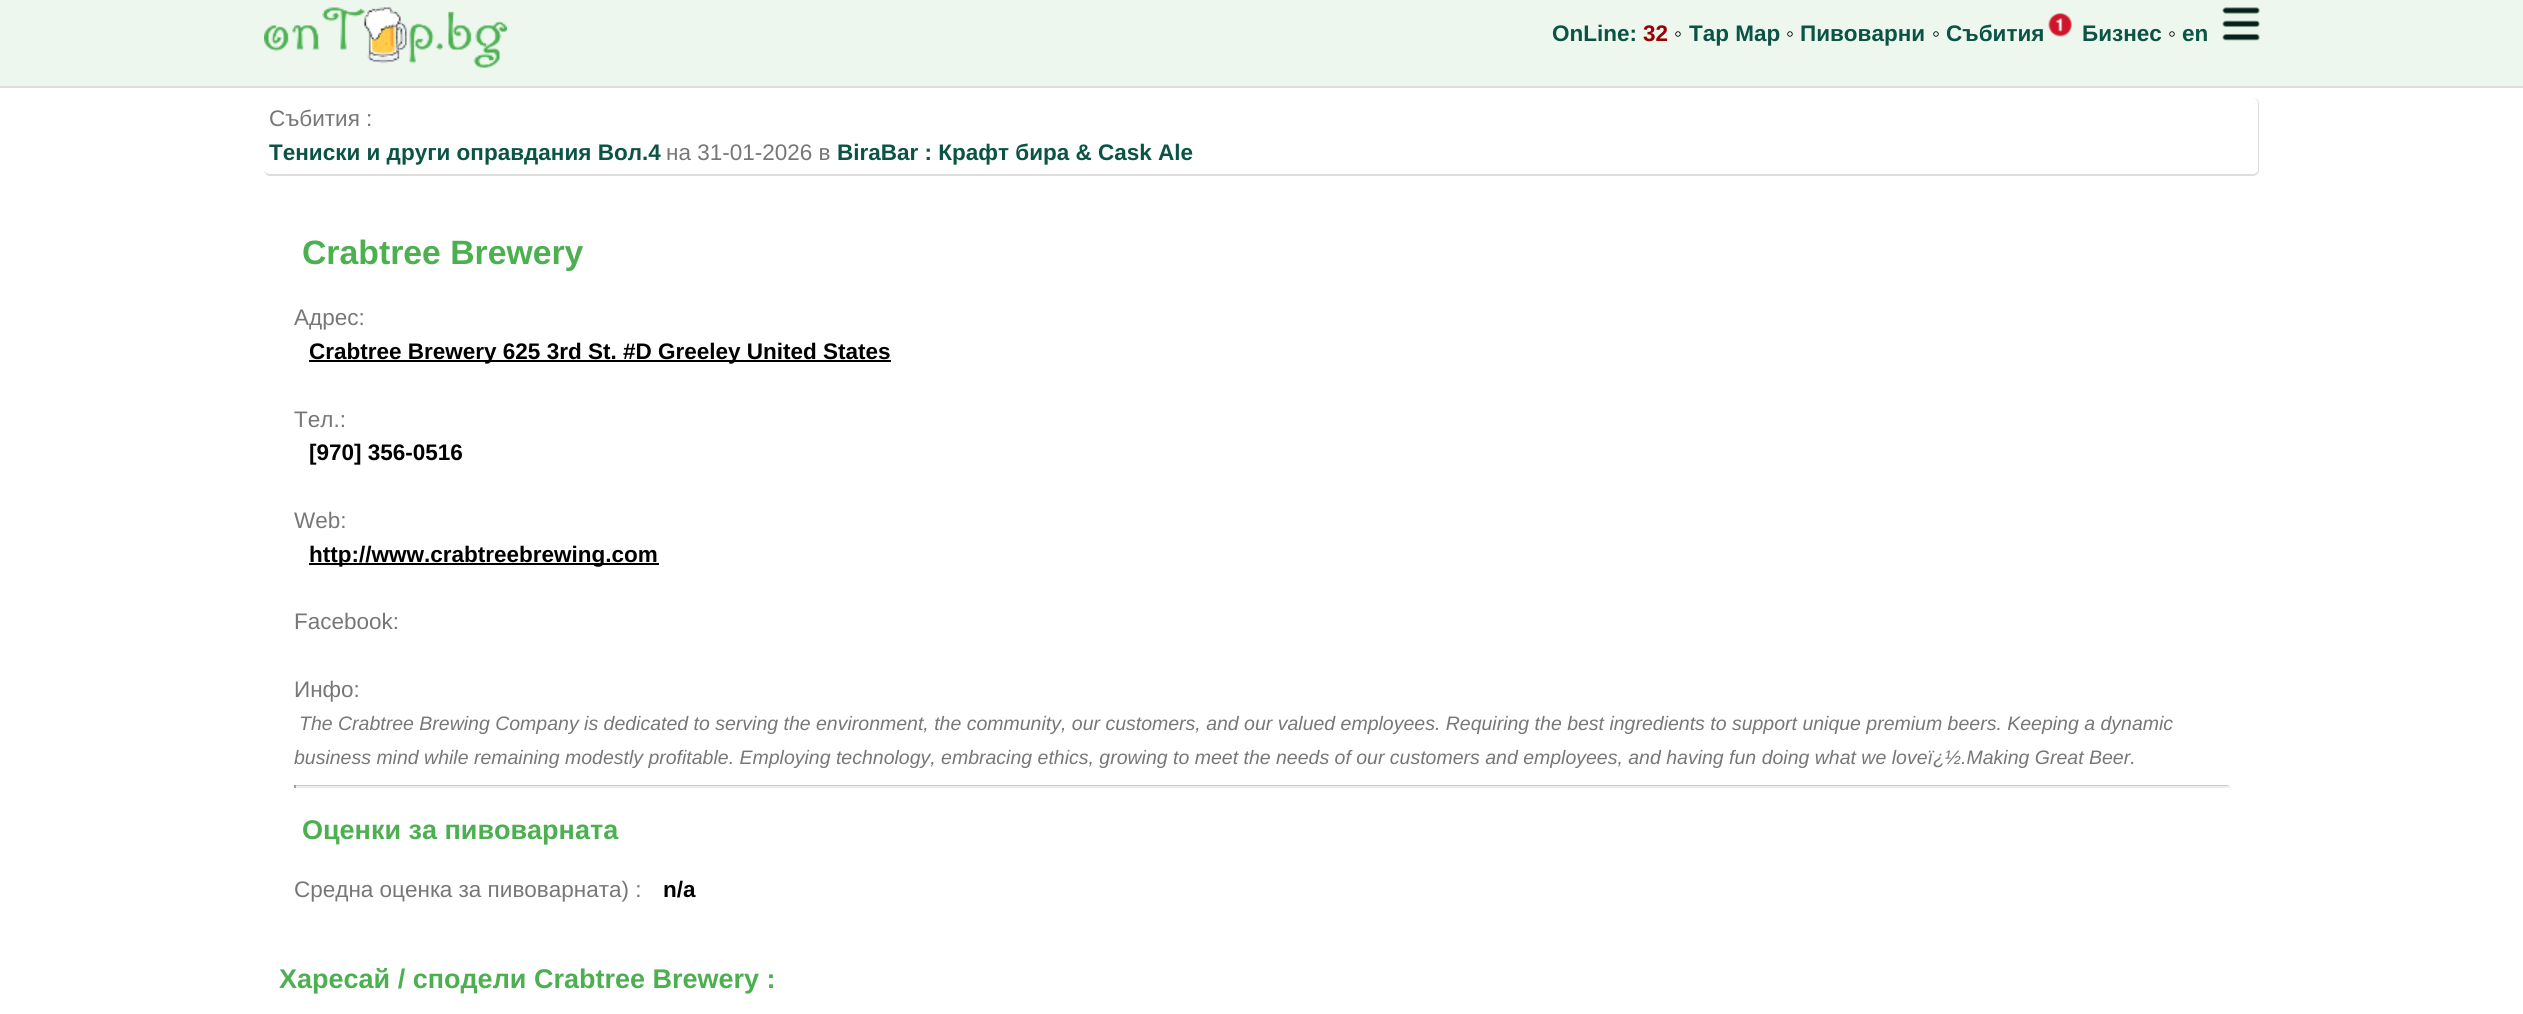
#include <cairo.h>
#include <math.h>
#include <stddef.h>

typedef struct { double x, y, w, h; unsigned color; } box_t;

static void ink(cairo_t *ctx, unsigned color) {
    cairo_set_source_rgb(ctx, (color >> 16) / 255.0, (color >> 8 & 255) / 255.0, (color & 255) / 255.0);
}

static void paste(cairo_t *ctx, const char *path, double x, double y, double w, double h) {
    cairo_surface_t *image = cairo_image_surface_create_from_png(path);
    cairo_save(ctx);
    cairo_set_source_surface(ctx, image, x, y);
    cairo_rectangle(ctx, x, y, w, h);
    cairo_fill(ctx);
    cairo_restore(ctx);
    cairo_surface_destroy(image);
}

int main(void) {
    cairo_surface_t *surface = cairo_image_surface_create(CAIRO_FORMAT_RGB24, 2523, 1014);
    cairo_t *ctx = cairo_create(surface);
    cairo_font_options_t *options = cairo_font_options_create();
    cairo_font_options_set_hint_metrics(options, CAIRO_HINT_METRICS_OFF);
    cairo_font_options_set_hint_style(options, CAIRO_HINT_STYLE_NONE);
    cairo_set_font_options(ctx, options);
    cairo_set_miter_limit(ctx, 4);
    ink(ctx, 0xFFFFFF);
    cairo_paint(ctx);
    ink(ctx, 0xEDF7EE);
    cairo_rectangle(ctx, 0, 0, 2523, 86);
    cairo_fill(ctx);
    ink(ctx, 0xDDDDDD);
    cairo_rectangle(ctx, 0, 86, 2523, 2);
    cairo_fill(ctx);
    paste(ctx, "media/1.png", 264, 7, 243, 61);
    cairo_select_font_face(ctx, "Liberation Sans", CAIRO_FONT_SLANT_NORMAL, CAIRO_FONT_WEIGHT_BOLD);
    cairo_set_font_size(ctx, 22.5);
    ink(ctx, 0x0B5345);
    cairo_move_to(ctx, 1552, 41);
    cairo_show_text(ctx, "OnLine:");
    ink(ctx, 0x990000);
    cairo_move_to(ctx, 1643, 41);
    cairo_show_text(ctx, "32");
    cairo_select_font_face(ctx, "Liberation Sans", CAIRO_FONT_SLANT_NORMAL, CAIRO_FONT_WEIGHT_NORMAL);
    ink(ctx, 0x000000);
    cairo_move_to(ctx, 1674, 41);
    cairo_show_text(ctx, "◦");
    cairo_select_font_face(ctx, "Liberation Sans", CAIRO_FONT_SLANT_NORMAL, CAIRO_FONT_WEIGHT_BOLD);
    ink(ctx, 0x0B5345);
    cairo_move_to(ctx, 1689, 41);
    cairo_show_text(ctx, "Tap Map");
    cairo_select_font_face(ctx, "Liberation Sans", CAIRO_FONT_SLANT_NORMAL, CAIRO_FONT_WEIGHT_NORMAL);
    ink(ctx, 0x000000);
    cairo_move_to(ctx, 1786, 41);
    cairo_show_text(ctx, "◦");
    cairo_select_font_face(ctx, "Liberation Sans", CAIRO_FONT_SLANT_NORMAL, CAIRO_FONT_WEIGHT_BOLD);
    ink(ctx, 0x0B5345);
    cairo_move_to(ctx, 1800, 41);
    cairo_show_text(ctx, "Пивоварни");
    cairo_select_font_face(ctx, "Liberation Sans", CAIRO_FONT_SLANT_NORMAL, CAIRO_FONT_WEIGHT_NORMAL);
    ink(ctx, 0x000000);
    cairo_move_to(ctx, 1932, 41);
    cairo_show_text(ctx, "◦");
    cairo_select_font_face(ctx, "Liberation Sans", CAIRO_FONT_SLANT_NORMAL, CAIRO_FONT_WEIGHT_BOLD);
    ink(ctx, 0x0B5345);
    cairo_move_to(ctx, 1946, 41);
    cairo_show_text(ctx, "Събития");
    paste(ctx, "media/2.png", 2048, 13, 24, 24);
    cairo_move_to(ctx, 2082, 41);
    cairo_show_text(ctx, "Бизнес");
    cairo_select_font_face(ctx, "Liberation Sans", CAIRO_FONT_SLANT_NORMAL, CAIRO_FONT_WEIGHT_NORMAL);
    ink(ctx, 0x000000);
    cairo_move_to(ctx, 2168, 41);
    cairo_show_text(ctx, "◦");
    cairo_select_font_face(ctx, "Liberation Sans", CAIRO_FONT_SLANT_NORMAL, CAIRO_FONT_WEIGHT_BOLD);
    ink(ctx, 0x0B5345);
    cairo_move_to(ctx, 2182, 41);
    cairo_show_text(ctx, "en");
    paste(ctx, "media/3.png", 2222, 7, 38, 34);
    ink(ctx, 0xDDDDDD);
    cairo_set_fill_rule(ctx, CAIRO_FILL_RULE_EVEN_ODD);
    cairo_new_path(ctx);
    cairo_move_to(ctx, 270, 98);
    cairo_line_to(ctx, 2253, 98);
    cairo_curve_to(ctx, 2256, 98, 2259, 100, 2259, 104);
    cairo_line_to(ctx, 2259, 170);
    cairo_curve_to(ctx, 2259, 173, 2256, 176, 2253, 176);
    cairo_line_to(ctx, 270, 176);
    cairo_curve_to(ctx, 267, 176, 264, 173, 264, 170);
    cairo_line_to(ctx, 264, 104);
    cairo_curve_to(ctx, 264, 100, 267, 98, 270, 98);
    cairo_close_path(ctx);
    cairo_move_to(ctx, 270, 98);
    cairo_line_to(ctx, 2253, 98);
    cairo_curve_to(ctx, 2255, 98, 2258, 100, 2258, 104);
    cairo_line_to(ctx, 2258, 170);
    cairo_curve_to(ctx, 2258, 172, 2255, 174, 2253, 174);
    cairo_line_to(ctx, 270, 174);
    cairo_curve_to(ctx, 267, 174, 264, 172, 264, 170);
    cairo_line_to(ctx, 264, 104);
    cairo_curve_to(ctx, 264, 100, 267, 98, 270, 98);
    cairo_close_path(ctx);
    cairo_fill(ctx);
    cairo_select_font_face(ctx, "Liberation Sans", CAIRO_FONT_SLANT_NORMAL, CAIRO_FONT_WEIGHT_NORMAL);
    ink(ctx, 0x777777);
    cairo_move_to(ctx, 269, 126);
    cairo_show_text(ctx, "Събития :");
    cairo_select_font_face(ctx, "Liberation Sans", CAIRO_FONT_SLANT_NORMAL, CAIRO_FONT_WEIGHT_BOLD);
    ink(ctx, 0x0B5345);
    cairo_move_to(ctx, 269, 160);
    cairo_show_text(ctx, "Тениски и други оправдания Вол.4");
    cairo_select_font_face(ctx, "Liberation Sans", CAIRO_FONT_SLANT_NORMAL, CAIRO_FONT_WEIGHT_NORMAL);
    ink(ctx, 0x777777);
    cairo_move_to(ctx, 666, 160);
    cairo_show_text(ctx, "на 31-01-2026 в");
    cairo_select_font_face(ctx, "Liberation Sans", CAIRO_FONT_SLANT_NORMAL, CAIRO_FONT_WEIGHT_BOLD);
    ink(ctx, 0x0B5345);
    cairo_move_to(ctx, 837, 160);
    cairo_show_text(ctx, "BiraBar : Крафт бира & Cask Ale");
    cairo_set_font_size(ctx, 33.75);
    ink(ctx, 0x4CAF50);
    cairo_move_to(ctx, 302, 264);
    cairo_show_text(ctx, "Crabtree Brewery");
    cairo_select_font_face(ctx, "Liberation Sans", CAIRO_FONT_SLANT_NORMAL, CAIRO_FONT_WEIGHT_NORMAL);
    cairo_set_font_size(ctx, 22.5);
    ink(ctx, 0x777777);
    cairo_move_to(ctx, 294, 325);
    cairo_show_text(ctx, "Адрес:");
    ink(ctx, 0x000000);
    cairo_rectangle(ctx, 309, 360, 582, 2);
    cairo_fill(ctx);
    cairo_select_font_face(ctx, "Liberation Sans", CAIRO_FONT_SLANT_NORMAL, CAIRO_FONT_WEIGHT_BOLD);
    cairo_move_to(ctx, 309, 359);
    cairo_show_text(ctx, "Crabtree Brewery 625 3rd St. #D Greeley United States");
    cairo_select_font_face(ctx, "Liberation Sans", CAIRO_FONT_SLANT_NORMAL, CAIRO_FONT_WEIGHT_NORMAL);
    ink(ctx, 0x777777);
    cairo_move_to(ctx, 294, 427);
    cairo_show_text(ctx, "Тел.:");
    cairo_select_font_face(ctx, "Liberation Sans", CAIRO_FONT_SLANT_NORMAL, CAIRO_FONT_WEIGHT_BOLD);
    ink(ctx, 0x000000);
    cairo_move_to(ctx, 309, 460);
    cairo_show_text(ctx, "[970] 356-0516");
    cairo_select_font_face(ctx, "Liberation Sans", CAIRO_FONT_SLANT_NORMAL, CAIRO_FONT_WEIGHT_NORMAL);
    ink(ctx, 0x777777);
    cairo_move_to(ctx, 294, 528);
    cairo_show_text(ctx, "Web:");
    ink(ctx, 0x000000);
    cairo_rectangle(ctx, 309, 563, 350, 2);
    cairo_fill(ctx);
    cairo_select_font_face(ctx, "Liberation Sans", CAIRO_FONT_SLANT_NORMAL, CAIRO_FONT_WEIGHT_BOLD);
    cairo_move_to(ctx, 309, 562);
    cairo_show_text(ctx, "http://www.crabtreebrewing.com");
    cairo_select_font_face(ctx, "Liberation Sans", CAIRO_FONT_SLANT_NORMAL, CAIRO_FONT_WEIGHT_NORMAL);
    ink(ctx, 0x777777);
    cairo_move_to(ctx, 294, 629);
    cairo_show_text(ctx, "Facebook:");
    cairo_move_to(ctx, 294, 697);
    cairo_show_text(ctx, "Инфо:");
    cairo_select_font_face(ctx, "Liberation Sans", CAIRO_FONT_SLANT_ITALIC, CAIRO_FONT_WEIGHT_NORMAL);
    cairo_set_font_size(ctx, 19.5);
    cairo_move_to(ctx, 299, 730);
    cairo_show_text(ctx, "The Crabtree Brewing Company is dedicated to serving the environment, the community, our customers, and our valued employees. Requiring the best ingredients to support unique premium beers. Keeping a dynamic");
    cairo_move_to(ctx, 294, 764);
    cairo_show_text(ctx, "business mind while remaining modestly profitable. Employing technology, embracing ethics, growing to meet the needs of our customers and employees, and having fun doing what we loveï¿½.Making Great Beer.");
    {
        static const box_t items[] = {
            {294, 785, 1935, 1, 0xA9DFBF},
            {2228, 785, 2, 3, 0xEEEEEE},
            {294, 786, 1935, 2, 0xEEEEEE},
            {294, 785, 2, 3, 0x9F9F9F},
        };
        for (size_t i = 0; i < sizeof items / sizeof *items; i++) {
            ink(ctx, items[i].color);
            cairo_rectangle(ctx, items[i].x, items[i].y, items[i].w, items[i].h);
            cairo_fill(ctx);
        }
    }
    cairo_select_font_face(ctx, "Liberation Sans", CAIRO_FONT_SLANT_NORMAL, CAIRO_FONT_WEIGHT_BOLD);
    cairo_set_font_size(ctx, 27);
    ink(ctx, 0x4CAF50);
    cairo_move_to(ctx, 302, 839);
    cairo_show_text(ctx, "Оценки за пивоварната");
    cairo_select_font_face(ctx, "Liberation Sans", CAIRO_FONT_SLANT_NORMAL, CAIRO_FONT_WEIGHT_NORMAL);
    cairo_set_font_size(ctx, 22.5);
    ink(ctx, 0x777777);
    cairo_move_to(ctx, 294, 897);
    cairo_show_text(ctx, "Средна оценка за пивоварната) :");
    cairo_select_font_face(ctx, "Liberation Sans", CAIRO_FONT_SLANT_NORMAL, CAIRO_FONT_WEIGHT_BOLD);
    ink(ctx, 0x000000);
    cairo_move_to(ctx, 663, 897);
    cairo_show_text(ctx, "n/a");
    cairo_set_font_size(ctx, 27);
    ink(ctx, 0x4CAF50);
    cairo_move_to(ctx, 279, 988);
    cairo_show_text(ctx, "Харесай / сподели Crabtree Brewery :");
    cairo_surface_write_to_png(surface, "image.png");
    cairo_font_options_destroy(options);
    cairo_destroy(ctx);
    cairo_surface_destroy(surface);
    return 0;
}
